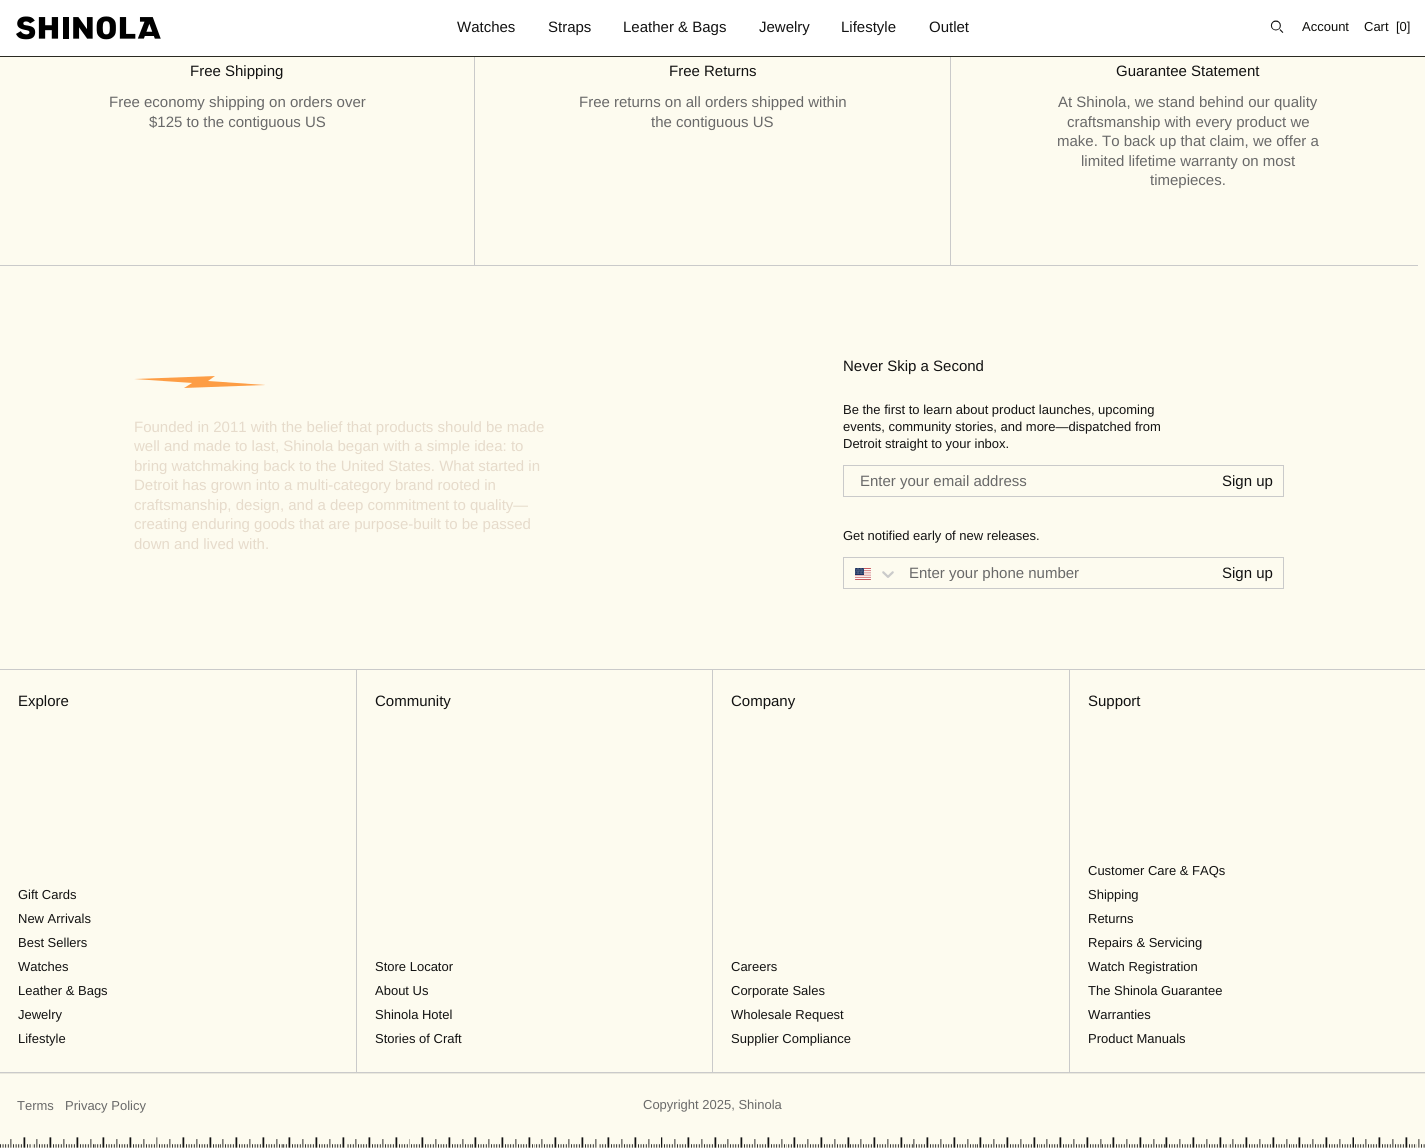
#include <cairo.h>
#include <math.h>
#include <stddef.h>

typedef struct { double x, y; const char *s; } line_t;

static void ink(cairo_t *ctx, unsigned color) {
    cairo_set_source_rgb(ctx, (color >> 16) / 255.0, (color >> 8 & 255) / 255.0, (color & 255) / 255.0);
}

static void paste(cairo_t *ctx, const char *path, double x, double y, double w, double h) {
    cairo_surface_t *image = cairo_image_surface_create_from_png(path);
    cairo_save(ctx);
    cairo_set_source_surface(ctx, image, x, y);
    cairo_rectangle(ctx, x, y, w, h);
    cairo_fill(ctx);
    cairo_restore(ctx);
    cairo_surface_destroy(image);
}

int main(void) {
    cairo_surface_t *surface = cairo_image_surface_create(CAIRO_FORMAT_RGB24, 1425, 1148);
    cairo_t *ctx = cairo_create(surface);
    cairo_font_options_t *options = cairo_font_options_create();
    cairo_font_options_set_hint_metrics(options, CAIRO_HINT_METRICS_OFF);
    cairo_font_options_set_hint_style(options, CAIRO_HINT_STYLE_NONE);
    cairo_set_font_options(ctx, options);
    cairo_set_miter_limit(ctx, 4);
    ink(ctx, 0xFDFBEF);
    cairo_paint(ctx);
    ink(ctx, 0x2A2A22);
    cairo_rectangle(ctx, 0, 56, 1425, 1);
    cairo_fill(ctx);
    ink(ctx, 0xFFFFFF);
    cairo_rectangle(ctx, 0, 0, 1425, 56);
    cairo_fill(ctx);
    paste(ctx, "media/1.png", 16, 16, 145, 24);
    cairo_select_font_face(ctx, "Liberation Sans", CAIRO_FONT_SLANT_NORMAL, CAIRO_FONT_WEIGHT_NORMAL);
    cairo_set_font_size(ctx, 15);
    ink(ctx, 0x121212);
    {
        static const line_t items[] = {
            {457, 32, "Watches"},
            {548, 32, "Straps"},
            {623, 32, "Leather & Bags"},
            {759, 32, "Jewelry"},
            {841, 32, "Lifestyle"},
            {929, 32, "Outlet"},
        };
        for (size_t i = 0; i < sizeof items / sizeof *items; i++) {
            cairo_move_to(ctx, items[i].x, items[i].y);
            cairo_show_text(ctx, items[i].s);
        }
    }
    paste(ctx, "media/2.png", 1270, 20, 14, 13);
    cairo_set_font_size(ctx, 13);
    ink(ctx, 0x0E0E0B);
    {
        static const line_t items[] = {
            {1302, 31, "Account"},
            {1364, 31, "Cart"},
            {1396, 31, "[0]"},
        };
        for (size_t i = 0; i < sizeof items / sizeof *items; i++) {
            cairo_move_to(ctx, items[i].x, items[i].y);
            cairo_show_text(ctx, items[i].s);
        }
    }
    ink(ctx, 0xCACACA);
    cairo_rectangle(ctx, 474, 57, 1, 208);
    cairo_fill(ctx);
    cairo_set_font_size(ctx, 15);
    ink(ctx, 0x121212);
    cairo_move_to(ctx, 190, 76);
    cairo_show_text(ctx, "Free Shipping");
    ink(ctx, 0x696969);
    cairo_move_to(ctx, 109, 107);
    cairo_show_text(ctx, "Free economy shipping on orders over");
    cairo_move_to(ctx, 149, 127);
    cairo_show_text(ctx, "$125 to the contiguous US");
    ink(ctx, 0xCACACA);
    cairo_rectangle(ctx, 950, 57, 1, 208);
    cairo_fill(ctx);
    ink(ctx, 0x121212);
    cairo_move_to(ctx, 669, 76);
    cairo_show_text(ctx, "Free Returns");
    ink(ctx, 0x696969);
    cairo_move_to(ctx, 579, 107);
    cairo_show_text(ctx, "Free returns on all orders shipped within");
    cairo_move_to(ctx, 651, 127);
    cairo_show_text(ctx, "the contiguous US");
    ink(ctx, 0x121212);
    cairo_move_to(ctx, 1116, 76);
    cairo_show_text(ctx, "Guarantee Statement");
    ink(ctx, 0x696969);
    {
        static const line_t items[] = {
            {1058, 107, "At Shinola, we stand behind our quality"},
            {1067, 127, "craftsmanship with every product we"},
            {1057, 146, "make. To back up that claim, we offer a"},
            {1081, 166, "limited lifetime warranty on most"},
            {1150, 185, "timepieces."},
        };
        for (size_t i = 0; i < sizeof items / sizeof *items; i++) {
            cairo_move_to(ctx, items[i].x, items[i].y);
            cairo_show_text(ctx, items[i].s);
        }
    }
    ink(ctx, 0xCACACA);
    cairo_rectangle(ctx, 0, 669, 1425, 1);
    cairo_fill(ctx);
    cairo_rectangle(ctx, 0, 265, 1418, 1);
    cairo_fill(ctx);
    ink(ctx, 0xFD9D45);
    cairo_new_path(ctx);
    cairo_move_to(ctx, 215, 376);
    cairo_line_to(ctx, 134, 379);
    cairo_line_to(ctx, 192, 383);
    cairo_line_to(ctx, 184, 388);
    cairo_line_to(ctx, 265, 385);
    cairo_line_to(ctx, 208, 381);
    cairo_close_path(ctx);
    cairo_fill(ctx);
    ink(ctx, 0xE6DBCB);
    {
        static const line_t items[] = {
            {134, 432, "Founded in 2011 with the belief that products should be made"},
            {134, 451, "well and made to last, Shinola began with a simple idea: to"},
            {134, 471, "bring watchmaking back to the United States. What started in"},
            {134, 490, "Detroit has grown into a multi-category brand rooted in"},
            {134, 510, "craftsmanship, design, and a deep commitment to quality—"},
            {134, 529, "creating enduring goods that are purpose-built to be passed"},
            {134, 549, "down and lived with."},
        };
        for (size_t i = 0; i < sizeof items / sizeof *items; i++) {
            cairo_move_to(ctx, items[i].x, items[i].y);
            cairo_show_text(ctx, items[i].s);
        }
    }
    ink(ctx, 0x121212);
    cairo_move_to(ctx, 843, 371);
    cairo_show_text(ctx, "Never Skip a Second");
    cairo_set_font_size(ctx, 13);
    {
        static const line_t items[] = {
            {843, 414, "Be the first to learn about product launches, upcoming"},
            {843, 431, "events, community stories, and more—dispatched from"},
            {843, 448, "Detroit straight to your inbox."},
        };
        for (size_t i = 0; i < sizeof items / sizeof *items; i++) {
            cairo_move_to(ctx, items[i].x, items[i].y);
            cairo_show_text(ctx, items[i].s);
        }
    }
    cairo_rectangle(ctx, 843.5, 465.5, 440, 31);
    ink(ctx, 0xCACACA);
    cairo_set_line_width(ctx, 1);
    cairo_stroke(ctx);
    cairo_set_font_size(ctx, 15);
    ink(ctx, 0x696969);
    cairo_move_to(ctx, 860, 486);
    cairo_show_text(ctx, "Enter your email address");
    ink(ctx, 0x121212);
    cairo_move_to(ctx, 1222, 486);
    cairo_show_text(ctx, "Sign up");
    cairo_set_font_size(ctx, 13);
    cairo_move_to(ctx, 843, 540);
    cairo_show_text(ctx, "Get notified early of new releases.");
    cairo_rectangle(ctx, 843.5, 557.5, 440, 31);
    ink(ctx, 0xCACACA);
    cairo_stroke(ctx);
    paste(ctx, "media/3.png", 855, 568, 16, 12);
    paste(ctx, "media/4.png", 882, 571, 12, 7);
    cairo_save(ctx);
    cairo_rectangle(ctx, 909, 564, 374, 17);
    cairo_clip(ctx);
    cairo_set_font_size(ctx, 15);
    ink(ctx, 0x696969);
    cairo_move_to(ctx, 909, 578);
    cairo_show_text(ctx, "Enter your phone number");
    cairo_restore(ctx);
    cairo_set_font_size(ctx, 15);
    ink(ctx, 0x121212);
    cairo_move_to(ctx, 1222, 578);
    cairo_show_text(ctx, "Sign up");
    ink(ctx, 0xCACACA);
    cairo_rectangle(ctx, 356, 670, 1, 403);
    cairo_fill(ctx);
    cairo_rectangle(ctx, 0, 1072, 357, 1);
    cairo_fill(ctx);
    ink(ctx, 0x121212);
    cairo_move_to(ctx, 18, 706);
    cairo_show_text(ctx, "Explore");
    cairo_set_font_size(ctx, 13);
    {
        static const line_t items[] = {
            {18, 899, "Gift Cards"},
            {18, 923, "New Arrivals"},
            {18, 947, "Best Sellers"},
            {18, 971, "Watches"},
            {18, 995, "Leather & Bags"},
            {18, 1019, "Jewelry"},
            {18, 1043, "Lifestyle"},
        };
        for (size_t i = 0; i < sizeof items / sizeof *items; i++) {
            cairo_move_to(ctx, items[i].x, items[i].y);
            cairo_show_text(ctx, items[i].s);
        }
    }
    ink(ctx, 0xCACACA);
    cairo_rectangle(ctx, 712, 670, 1, 403);
    cairo_fill(ctx);
    cairo_rectangle(ctx, 357, 1072, 356, 1);
    cairo_fill(ctx);
    cairo_set_font_size(ctx, 15);
    ink(ctx, 0x121212);
    cairo_move_to(ctx, 375, 706);
    cairo_show_text(ctx, "Community");
    cairo_set_font_size(ctx, 13);
    {
        static const line_t items[] = {
            {375, 971, "Store Locator"},
            {375, 995, "About Us"},
            {375, 1019, "Shinola Hotel"},
            {375, 1043, "Stories of Craft"},
        };
        for (size_t i = 0; i < sizeof items / sizeof *items; i++) {
            cairo_move_to(ctx, items[i].x, items[i].y);
            cairo_show_text(ctx, items[i].s);
        }
    }
    ink(ctx, 0xCACACA);
    cairo_rectangle(ctx, 1069, 670, 1, 403);
    cairo_fill(ctx);
    cairo_rectangle(ctx, 713, 1072, 712, 1);
    cairo_fill(ctx);
    cairo_set_font_size(ctx, 15);
    ink(ctx, 0x121212);
    cairo_move_to(ctx, 731, 706);
    cairo_show_text(ctx, "Company");
    cairo_set_font_size(ctx, 13);
    {
        static const line_t items[] = {
            {731, 971, "Careers"},
            {731, 995, "Corporate Sales"},
            {731, 1019, "Wholesale Request"},
            {731, 1043, "Supplier Compliance"},
        };
        for (size_t i = 0; i < sizeof items / sizeof *items; i++) {
            cairo_move_to(ctx, items[i].x, items[i].y);
            cairo_show_text(ctx, items[i].s);
        }
    }
    cairo_set_font_size(ctx, 15);
    cairo_move_to(ctx, 1088, 706);
    cairo_show_text(ctx, "Support");
    cairo_set_font_size(ctx, 13);
    {
        static const line_t items[] = {
            {1088, 875, "Customer Care & FAQs"},
            {1088, 899, "Shipping"},
            {1088, 923, "Returns"},
            {1088, 947, "Repairs & Servicing"},
            {1088, 971, "Watch Registration"},
            {1088, 995, "The Shinola Guarantee"},
            {1088, 1019, "Warranties"},
            {1088, 1043, "Product Manuals"},
        };
        for (size_t i = 0; i < sizeof items / sizeof *items; i++) {
            cairo_move_to(ctx, items[i].x, items[i].y);
            cairo_show_text(ctx, items[i].s);
        }
    }
    ink(ctx, 0xEAE8DD);
    cairo_rectangle(ctx, 0, 1073, 1425, 1);
    cairo_fill(ctx);
    ink(ctx, 0x696969);
    {
        static const line_t items[] = {
            {17, 1110, "Terms"},
            {65, 1110, "Privacy Policy"},
            {643, 1109, "Copyright 2025, Shinola"},
        };
        for (size_t i = 0; i < sizeof items / sizeof *items; i++) {
            cairo_move_to(ctx, items[i].x, items[i].y);
            cairo_show_text(ctx, items[i].s);
        }
    }
    paste(ctx, "media/5.png", 0, 1137, 1425, 11);
    cairo_surface_write_to_png(surface, "image.png");
    cairo_font_options_destroy(options);
    cairo_destroy(ctx);
    cairo_surface_destroy(surface);
    return 0;
}
